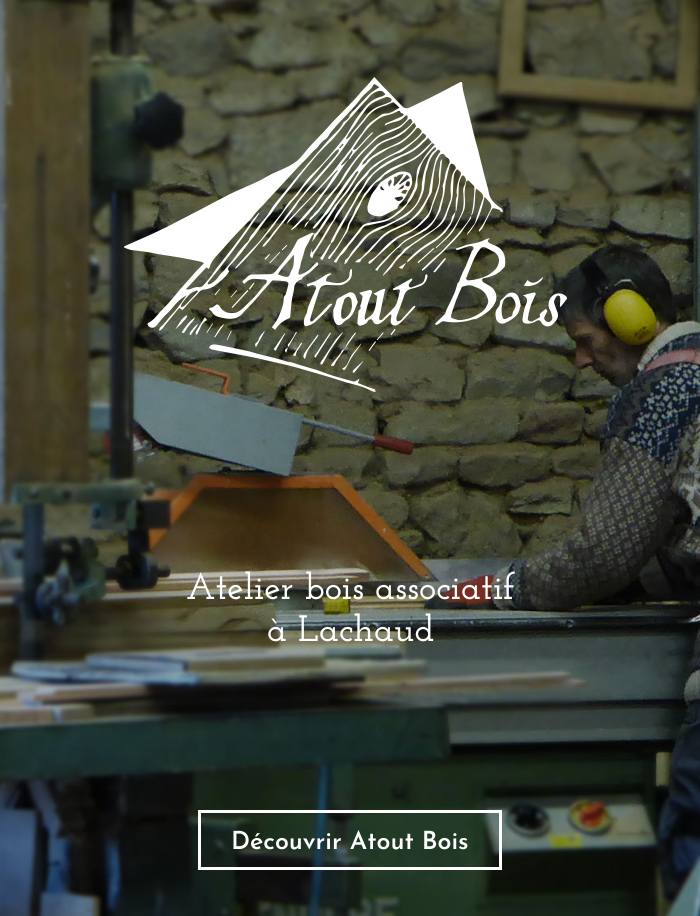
#include <cairo.h>
#include <math.h>
#include <stddef.h>


static void ink(cairo_t *ctx, unsigned color) {
    cairo_set_source_rgb(ctx, (color >> 16) / 255.0, (color >> 8 & 255) / 255.0, (color & 255) / 255.0);
}

static void paste(cairo_t *ctx, const char *path, double x, double y, double w, double h) {
    cairo_surface_t *image = cairo_image_surface_create_from_png(path);
    cairo_save(ctx);
    cairo_set_source_surface(ctx, image, x, y);
    cairo_rectangle(ctx, x, y, w, h);
    cairo_fill(ctx);
    cairo_restore(ctx);
    cairo_surface_destroy(image);
}

int main(void) {
    cairo_surface_t *surface = cairo_image_surface_create(CAIRO_FORMAT_RGB24, 700, 916);
    cairo_t *ctx = cairo_create(surface);
    cairo_font_options_t *options = cairo_font_options_create();
    cairo_font_options_set_hint_metrics(options, CAIRO_HINT_METRICS_OFF);
    cairo_font_options_set_hint_style(options, CAIRO_HINT_STYLE_NONE);
    cairo_set_font_options(ctx, options);
    cairo_set_miter_limit(ctx, 4);
    ink(ctx, 0xFFFFFF);
    cairo_paint(ctx);
    paste(ctx, "media/1.png", 0, 0, 700, 916);
    paste(ctx, "media/2.png", 124, 77, 443, 315);
    cairo_select_font_face(ctx, "Josefin Slab SemiBold", CAIRO_FONT_SLANT_NORMAL, CAIRO_FONT_WEIGHT_NORMAL);
    cairo_set_font_size(ctx, 36.75);
    ink(ctx, 0xFFFFFF);
    cairo_move_to(ctx, 186, 599);
    cairo_show_text(ctx, "Atelier bois associatif");
    cairo_move_to(ctx, 267, 641);
    cairo_show_text(ctx, "à Lachaud");
    cairo_rectangle(ctx, 199.5, 811.5, 301, 57);
    cairo_set_line_width(ctx, 3);
    cairo_stroke(ctx);
    cairo_select_font_face(ctx, "Josefin Sans SemiBold", CAIRO_FONT_SLANT_NORMAL, CAIRO_FONT_WEIGHT_NORMAL);
    cairo_set_font_size(ctx, 25);
    cairo_move_to(ctx, 231, 849);
    cairo_show_text(ctx, "Découvrir Atout Bois");
    cairo_surface_write_to_png(surface, "image.png");
    cairo_font_options_destroy(options);
    cairo_destroy(ctx);
    cairo_surface_destroy(surface);
    return 0;
}
